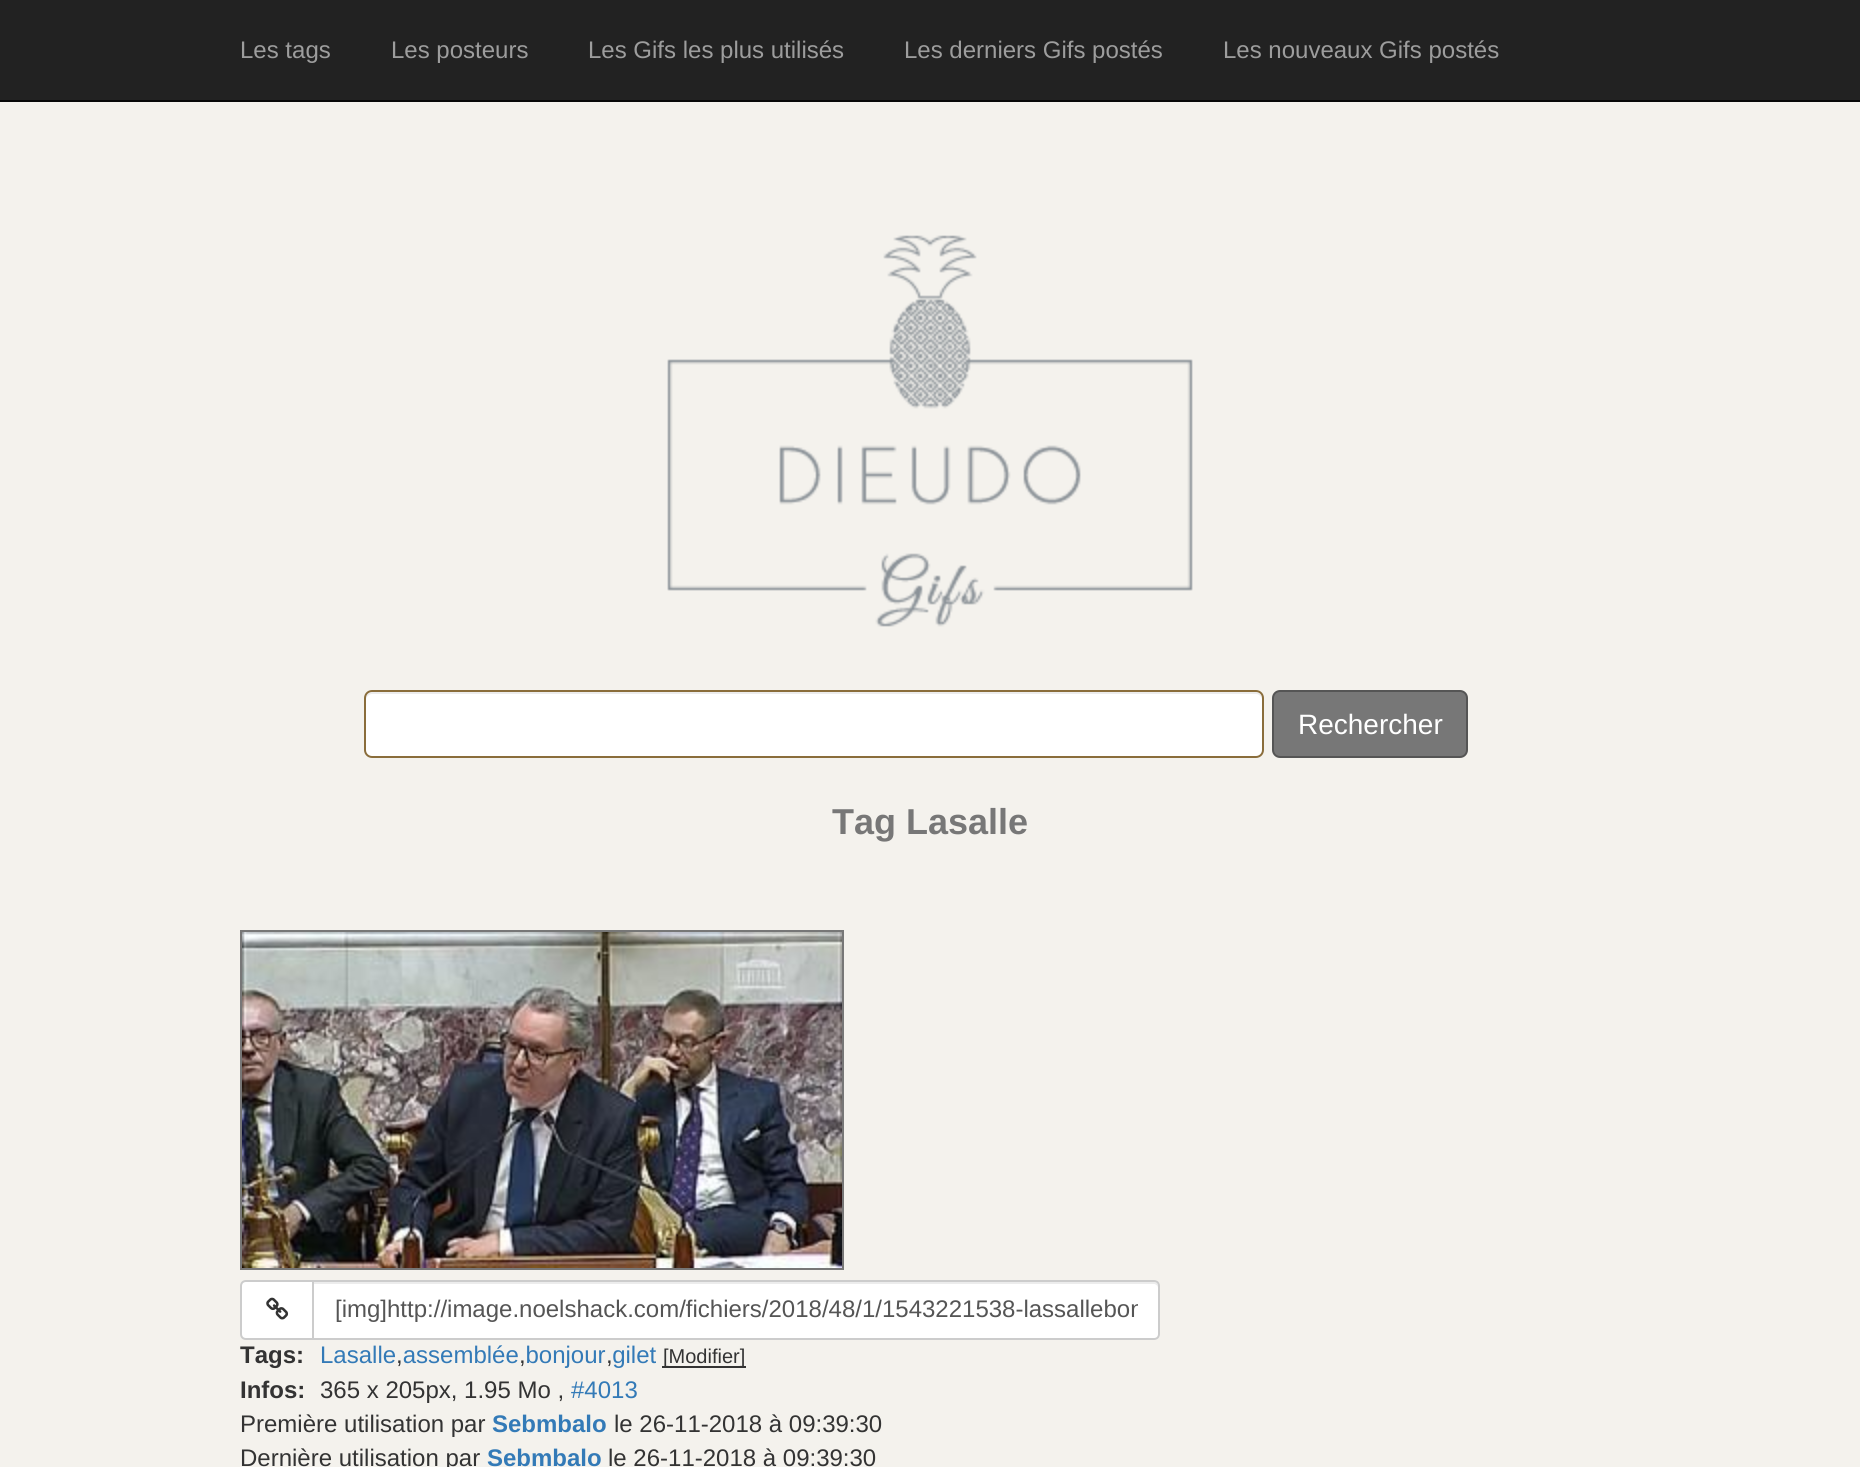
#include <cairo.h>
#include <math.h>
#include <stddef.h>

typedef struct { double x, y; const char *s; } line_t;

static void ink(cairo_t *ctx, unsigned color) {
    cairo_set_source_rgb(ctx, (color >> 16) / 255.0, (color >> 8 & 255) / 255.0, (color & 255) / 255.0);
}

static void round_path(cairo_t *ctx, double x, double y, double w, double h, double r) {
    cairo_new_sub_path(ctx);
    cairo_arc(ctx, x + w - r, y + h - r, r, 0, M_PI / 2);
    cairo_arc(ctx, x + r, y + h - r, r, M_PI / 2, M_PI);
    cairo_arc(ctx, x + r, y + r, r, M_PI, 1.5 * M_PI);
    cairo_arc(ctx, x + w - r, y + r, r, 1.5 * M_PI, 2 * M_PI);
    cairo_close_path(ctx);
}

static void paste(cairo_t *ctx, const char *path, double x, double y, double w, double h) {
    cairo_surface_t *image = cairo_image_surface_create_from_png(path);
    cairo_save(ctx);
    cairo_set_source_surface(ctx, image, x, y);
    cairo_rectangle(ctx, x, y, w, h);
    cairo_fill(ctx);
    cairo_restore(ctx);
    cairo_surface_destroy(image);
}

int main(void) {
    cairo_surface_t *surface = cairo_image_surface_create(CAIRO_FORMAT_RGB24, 1860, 1467);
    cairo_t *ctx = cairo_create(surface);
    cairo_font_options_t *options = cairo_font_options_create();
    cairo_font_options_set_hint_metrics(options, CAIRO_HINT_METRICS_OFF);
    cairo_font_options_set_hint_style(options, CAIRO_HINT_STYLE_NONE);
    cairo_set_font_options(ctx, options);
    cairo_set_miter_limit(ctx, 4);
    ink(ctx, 0xF4F2ED);
    cairo_paint(ctx);
    ink(ctx, 0x222222);
    cairo_rectangle(ctx, 0, 0, 1860, 100);
    cairo_fill(ctx);
    ink(ctx, 0x080808);
    cairo_rectangle(ctx, 0, 100, 1860, 2);
    cairo_fill(ctx);
    cairo_select_font_face(ctx, "Liberation Sans", CAIRO_FONT_SLANT_NORMAL, CAIRO_FONT_WEIGHT_NORMAL);
    cairo_set_font_size(ctx, 24);
    ink(ctx, 0x9D9D9D);
    {
        static const line_t items[] = {
            {240, 58, "Les tags"},
            {391, 58, "Les posteurs"},
            {588, 58, "Les Gifs les plus utilisés"},
            {904, 58, "Les derniers Gifs postés"},
            {1223, 58, "Les nouveaux Gifs postés"},
        };
        for (size_t i = 0; i < sizeof items / sizeof *items; i++) {
            cairo_move_to(ctx, items[i].x, items[i].y);
            cairo_show_text(ctx, items[i].s);
        }
    }
    paste(ctx, "media/1.png", 667, 235, 526, 392);
    ink(ctx, 0xFFFFFF);
    round_path(ctx, 364, 690, 900, 68, 8);
    cairo_fill(ctx);
    ink(ctx, 0xECECEC);
    cairo_new_path(ctx);
    cairo_move_to(ctx, 372, 694);
    cairo_line_to(ctx, 1256, 694);
    cairo_curve_to(ctx, 1259, 694, 1262, 697, 1262, 700);
    cairo_line_to(ctx, 1262, 698);
    cairo_curve_to(ctx, 1262, 695, 1259, 692, 1256, 692);
    cairo_line_to(ctx, 372, 692);
    cairo_curve_to(ctx, 369, 692, 366, 695, 366, 698);
    cairo_line_to(ctx, 366, 700);
    cairo_curve_to(ctx, 366, 697, 369, 694, 372, 694);
    cairo_close_path(ctx);
    cairo_fill(ctx);
    round_path(ctx, 365, 691, 898, 66, 7);
    ink(ctx, 0x8A6D3B);
    cairo_stroke(ctx);
    ink(ctx, 0x777777);
    round_path(ctx, 1273, 691, 194, 66, 7);
    cairo_fill_preserve(ctx);
    ink(ctx, 0x555555);
    cairo_stroke(ctx);
    cairo_set_font_size(ctx, 28);
    ink(ctx, 0xFFFFFF);
    cairo_move_to(ctx, 1298, 734);
    cairo_show_text(ctx, "Rechercher");
    cairo_select_font_face(ctx, "Liberation Sans", CAIRO_FONT_SLANT_NORMAL, CAIRO_FONT_WEIGHT_BOLD);
    cairo_set_font_size(ctx, 36);
    ink(ctx, 0x777777);
    cairo_move_to(ctx, 832, 834);
    cairo_show_text(ctx, "Tag Lasalle");
    cairo_rectangle(ctx, 241, 931, 602, 338);
    cairo_stroke(ctx);
    paste(ctx, "media/2.png", 242, 932, 600, 336);
    ink(ctx, 0xFFFFFF);
    cairo_new_path(ctx);
    cairo_move_to(ctx, 246, 1281);
    cairo_line_to(ctx, 313, 1281);
    cairo_line_to(ctx, 313, 1339);
    cairo_line_to(ctx, 246, 1339);
    cairo_curve_to(ctx, 243, 1339, 241, 1337, 241, 1334);
    cairo_line_to(ctx, 241, 1286);
    cairo_curve_to(ctx, 241, 1283, 243, 1281, 246, 1281);
    cairo_close_path(ctx);
    cairo_fill_preserve(ctx);
    ink(ctx, 0xCCCCCC);
    cairo_stroke(ctx);
    paste(ctx, "media/3.png", 266, 1297, 23, 23);
    ink(ctx, 0xFFFFFF);
    cairo_new_path(ctx);
    cairo_move_to(ctx, 312, 1280);
    cairo_line_to(ctx, 1154, 1280);
    cairo_curve_to(ctx, 1157.5, 1280, 1160, 1282.5, 1160, 1286);
    cairo_line_to(ctx, 1160, 1334);
    cairo_curve_to(ctx, 1160, 1337.5, 1157.5, 1340, 1154, 1340);
    cairo_line_to(ctx, 312, 1340);
    cairo_close_path(ctx);
    cairo_fill(ctx);
    ink(ctx, 0xECECEC);
    cairo_new_path(ctx);
    cairo_move_to(ctx, 314, 1284);
    cairo_line_to(ctx, 1154, 1284);
    cairo_curve_to(ctx, 1156, 1284, 1158, 1286, 1158, 1288);
    cairo_curve_to(ctx, 1158, 1285, 1158, 1282, 1154, 1282);
    cairo_line_to(ctx, 314, 1282);
    cairo_close_path(ctx);
    cairo_fill(ctx);
    cairo_new_path(ctx);
    cairo_move_to(ctx, 313, 1281);
    cairo_line_to(ctx, 1154, 1281);
    cairo_curve_to(ctx, 1157, 1281, 1159, 1283, 1159, 1286);
    cairo_line_to(ctx, 1159, 1334);
    cairo_curve_to(ctx, 1159, 1337, 1157, 1339, 1154, 1339);
    cairo_line_to(ctx, 313, 1339);
    cairo_close_path(ctx);
    ink(ctx, 0xCCCCCC);
    cairo_stroke(ctx);
    cairo_save(ctx);
    cairo_rectangle(ctx, 334, 1296, 804, 28);
    cairo_clip(ctx);
    cairo_select_font_face(ctx, "Liberation Sans", CAIRO_FONT_SLANT_NORMAL, CAIRO_FONT_WEIGHT_NORMAL);
    cairo_set_font_size(ctx, 24);
    ink(ctx, 0x555555);
    cairo_move_to(ctx, 335, 1317);
    cairo_show_text(ctx, "[img]http://image.noelshack.com/fichiers/2018/48/1/1543221538-lassallebon");
    cairo_restore(ctx);
    cairo_set_font_size(ctx, 24);
    ink(ctx, 0x333333);
    cairo_move_to(ctx, 240, 1363);
    cairo_show_text(ctx, "Tags:");
    cairo_select_font_face(ctx, "Liberation Sans", CAIRO_FONT_SLANT_NORMAL, CAIRO_FONT_WEIGHT_NORMAL);
    ink(ctx, 0x337AB7);
    cairo_move_to(ctx, 320, 1363);
    cairo_show_text(ctx, "Lasalle assemblée bonjour gilet");
    ink(ctx, 0x333333);
    cairo_rectangle(ctx, 662, 1366, 84, 2);
    cairo_fill(ctx);
    cairo_set_font_size(ctx, 20);
    cairo_move_to(ctx, 663, 1363);
    cairo_show_text(ctx, "[Modifier]");
    cairo_set_font_size(ctx, 24);
    {
        static const line_t items[] = {
            {396, 1363, ","},
            {519, 1363, ","},
            {606, 1363, ","},
        };
        for (size_t i = 0; i < sizeof items / sizeof *items; i++) {
            cairo_move_to(ctx, items[i].x, items[i].y);
            cairo_show_text(ctx, items[i].s);
        }
    }
    cairo_select_font_face(ctx, "Liberation Sans", CAIRO_FONT_SLANT_NORMAL, CAIRO_FONT_WEIGHT_BOLD);
    cairo_move_to(ctx, 240, 1398);
    cairo_show_text(ctx, "Infos:");
    cairo_select_font_face(ctx, "Liberation Sans", CAIRO_FONT_SLANT_NORMAL, CAIRO_FONT_WEIGHT_NORMAL);
    cairo_move_to(ctx, 320, 1398);
    cairo_show_text(ctx, "365 x 205px, 1.95 Mo ,");
    ink(ctx, 0x337AB7);
    cairo_move_to(ctx, 571, 1398);
    cairo_show_text(ctx, "#4013");
    ink(ctx, 0x333333);
    cairo_move_to(ctx, 240, 1432);
    cairo_show_text(ctx, "Première utilisation par");
    cairo_select_font_face(ctx, "Liberation Sans", CAIRO_FONT_SLANT_NORMAL, CAIRO_FONT_WEIGHT_BOLD);
    ink(ctx, 0x337AB7);
    cairo_move_to(ctx, 492, 1432);
    cairo_show_text(ctx, "Sebmbalo");
    cairo_select_font_face(ctx, "Liberation Sans", CAIRO_FONT_SLANT_NORMAL, CAIRO_FONT_WEIGHT_NORMAL);
    ink(ctx, 0x333333);
    cairo_move_to(ctx, 614, 1432);
    cairo_show_text(ctx, "le 26-11-2018 à 09:39:30");
    cairo_move_to(ctx, 240, 1466);
    cairo_show_text(ctx, "Dernière utilisation par");
    cairo_select_font_face(ctx, "Liberation Sans", CAIRO_FONT_SLANT_NORMAL, CAIRO_FONT_WEIGHT_BOLD);
    ink(ctx, 0x337AB7);
    cairo_move_to(ctx, 487, 1466);
    cairo_show_text(ctx, "Sebmbalo");
    cairo_select_font_face(ctx, "Liberation Sans", CAIRO_FONT_SLANT_NORMAL, CAIRO_FONT_WEIGHT_NORMAL);
    ink(ctx, 0x333333);
    cairo_move_to(ctx, 608, 1466);
    cairo_show_text(ctx, "le 26-11-2018 à 09:39:30");
    cairo_surface_write_to_png(surface, "image.png");
    cairo_font_options_destroy(options);
    cairo_destroy(ctx);
    cairo_surface_destroy(surface);
    return 0;
}
